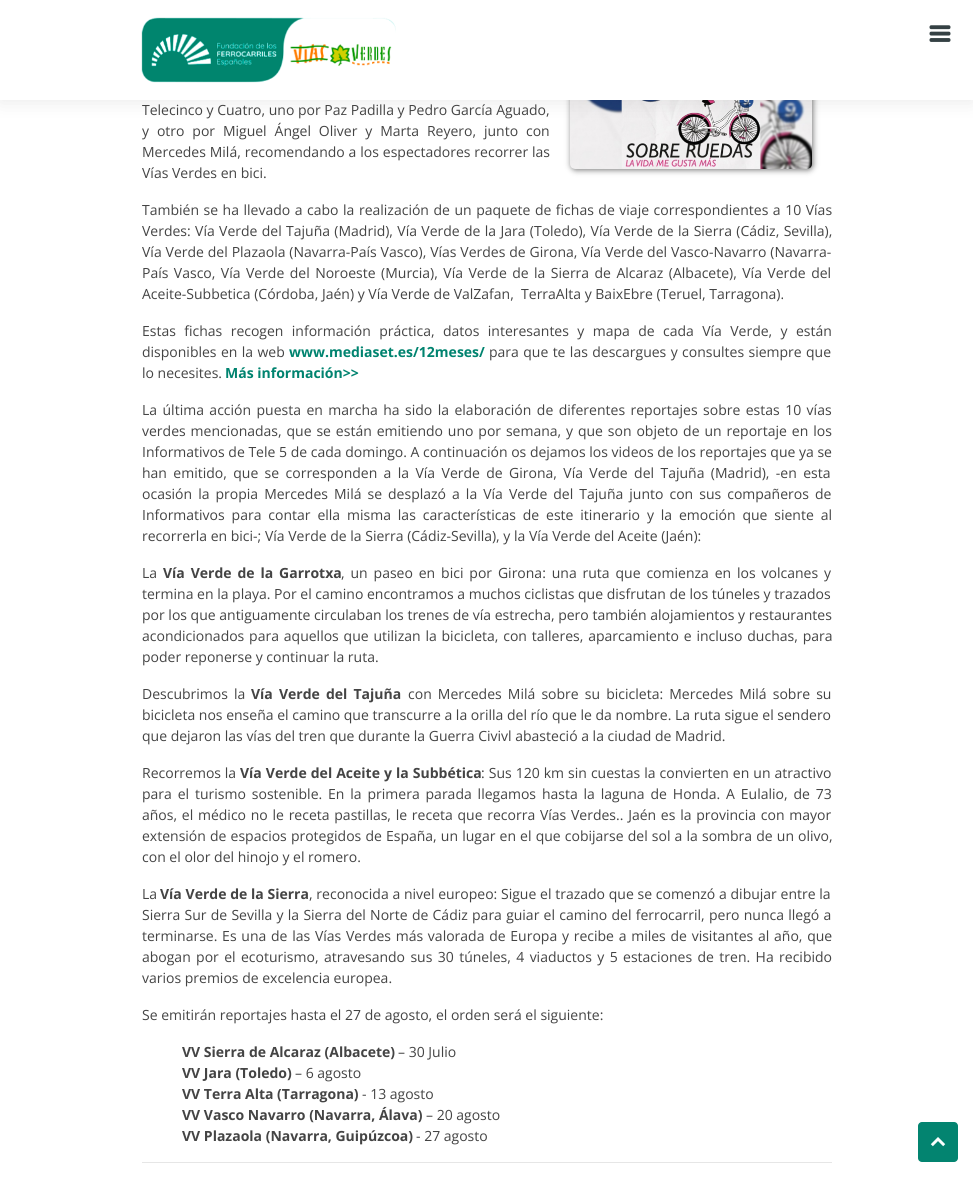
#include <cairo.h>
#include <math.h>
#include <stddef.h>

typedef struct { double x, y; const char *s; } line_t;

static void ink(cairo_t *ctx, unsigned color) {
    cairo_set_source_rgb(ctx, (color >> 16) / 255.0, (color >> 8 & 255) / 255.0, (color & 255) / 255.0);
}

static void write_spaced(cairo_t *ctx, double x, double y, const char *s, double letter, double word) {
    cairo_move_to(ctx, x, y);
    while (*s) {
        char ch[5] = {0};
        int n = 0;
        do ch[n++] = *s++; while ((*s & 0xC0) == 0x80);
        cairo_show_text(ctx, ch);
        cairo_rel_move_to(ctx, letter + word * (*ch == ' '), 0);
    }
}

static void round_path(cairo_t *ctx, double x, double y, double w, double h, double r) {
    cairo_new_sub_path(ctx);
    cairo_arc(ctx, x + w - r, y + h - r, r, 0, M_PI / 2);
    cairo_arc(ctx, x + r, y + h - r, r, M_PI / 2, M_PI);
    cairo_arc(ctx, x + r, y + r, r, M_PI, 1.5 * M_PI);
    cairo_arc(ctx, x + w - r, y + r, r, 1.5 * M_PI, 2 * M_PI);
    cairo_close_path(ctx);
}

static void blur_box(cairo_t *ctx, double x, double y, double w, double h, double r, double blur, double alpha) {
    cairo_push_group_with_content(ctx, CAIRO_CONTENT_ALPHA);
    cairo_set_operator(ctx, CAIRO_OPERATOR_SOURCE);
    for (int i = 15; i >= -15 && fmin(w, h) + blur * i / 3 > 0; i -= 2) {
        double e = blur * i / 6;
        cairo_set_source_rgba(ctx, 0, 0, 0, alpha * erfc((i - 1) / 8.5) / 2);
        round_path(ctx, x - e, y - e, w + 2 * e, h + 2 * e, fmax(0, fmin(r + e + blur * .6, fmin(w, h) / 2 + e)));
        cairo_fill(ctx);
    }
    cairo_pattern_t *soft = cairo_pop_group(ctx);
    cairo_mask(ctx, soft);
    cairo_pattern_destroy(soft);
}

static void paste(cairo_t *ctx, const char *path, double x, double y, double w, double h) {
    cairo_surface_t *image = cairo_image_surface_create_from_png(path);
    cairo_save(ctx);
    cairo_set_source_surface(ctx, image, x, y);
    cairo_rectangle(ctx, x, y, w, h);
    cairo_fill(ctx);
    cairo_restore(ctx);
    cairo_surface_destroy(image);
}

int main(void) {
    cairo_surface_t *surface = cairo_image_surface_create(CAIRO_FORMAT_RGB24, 973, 1177);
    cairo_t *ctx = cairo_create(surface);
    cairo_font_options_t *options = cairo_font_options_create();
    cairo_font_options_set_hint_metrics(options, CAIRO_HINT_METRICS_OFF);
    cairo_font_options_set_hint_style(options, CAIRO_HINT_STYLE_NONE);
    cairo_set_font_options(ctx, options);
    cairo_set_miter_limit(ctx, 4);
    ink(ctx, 0xFFFFFF);
    cairo_paint(ctx);
    ink(ctx, 0x777777);
    blur_box(ctx, 571, 10, 242, 160, 5, 3, 1);
    paste(ctx, "media/3.png", 570, 100, 242, 69);
    ink(ctx, 0x000000);
    blur_box(ctx, 0, 0, 973, 100, 0, 10, 0.1);
    ink(ctx, 0xFFFFFF);
    cairo_rectangle(ctx, 0, 0, 973, 100);
    cairo_fill(ctx);
    paste(ctx, "media/1.png", 141, 17, 255, 66);
    paste(ctx, "media/2.png", 929, 25, 22, 17);
    cairo_select_font_face(ctx, "Open Sans", CAIRO_FONT_SLANT_NORMAL, CAIRO_FONT_WEIGHT_NORMAL);
    cairo_set_font_size(ctx, 14);
    ink(ctx, 0x444444);
    cairo_move_to(ctx, 142, 115);
    cairo_show_text(ctx, "Telecinco y Cuatro, uno por Paz Padilla y Pedro García Aguado,");
    write_spaced(ctx, 142, 136, "y otro por Miguel Ángel Oliver y Marta Reyero, junto con", 0, 4.25);
    write_spaced(ctx, 142, 157, "Mercedes Milá, recomendando a los espectadores recorrer las", 0, 0.25);
    cairo_move_to(ctx, 142, 178);
    cairo_show_text(ctx, "Vías Verdes en bici.");
    write_spaced(ctx, 142, 215, "También se ha llevado a cabo la realización de un paquete de fichas de viaje correspondientes a 10 Vías", 0, 0.9);
    write_spaced(ctx, 142, 236, "Verdes: Vía Verde del Tajuña (Madrid), Vía Verde de la Jara (Toledo), Vía Verde de la Sierra (Cádiz, Sevilla),", 0, 0.7);
    write_spaced(ctx, 142, 257, "Vía Verde del Plazaola (Navarra-País Vasco), Vías Verdes de Girona, Vía Verde del Vasco-Navarro (Navarra-", 0, 0.25);
    write_spaced(ctx, 142, 278, "País Vasco, Vía Verde del Noroeste (Murcia), Vía Verde de la Sierra de Alcaraz (Albacete), Vía Verde del", 0, 1.8);
    cairo_move_to(ctx, 142, 299);
    cairo_show_text(ctx, "Aceite-Subbetica (Córdoba, Jaén) y Vía Verde de ValZafan,  TerraAlta y BaixEbre (Teruel, Tarragona).");
    write_spaced(ctx, 142, 336, "Estas fichas recogen información práctica, datos interesantes y mapa de cada Vía Verde, y están", 0, 4.75);
    write_spaced(ctx, 142, 357, "disponibles en la web", 0, 0.75);
    cairo_select_font_face(ctx, "Open Sans", CAIRO_FONT_SLANT_NORMAL, CAIRO_FONT_WEIGHT_BOLD);
    ink(ctx, 0x00836F);
    cairo_move_to(ctx, 289, 357);
    cairo_show_text(ctx, "www.mediaset.es/12meses/");
    cairo_select_font_face(ctx, "Open Sans", CAIRO_FONT_SLANT_NORMAL, CAIRO_FONT_WEIGHT_NORMAL);
    ink(ctx, 0x444444);
    write_spaced(ctx, 489, 357, "para que te las descargues y consultes siempre que", 0, 0.75);
    cairo_move_to(ctx, 142, 378);
    cairo_show_text(ctx, "lo necesites.");
    cairo_select_font_face(ctx, "Open Sans", CAIRO_FONT_SLANT_NORMAL, CAIRO_FONT_WEIGHT_BOLD);
    ink(ctx, 0x00836F);
    cairo_move_to(ctx, 225, 378);
    cairo_show_text(ctx, "Más información>>");
    cairo_select_font_face(ctx, "Open Sans", CAIRO_FONT_SLANT_NORMAL, CAIRO_FONT_WEIGHT_NORMAL);
    ink(ctx, 0x444444);
    write_spaced(ctx, 142, 415, "La última acción puesta en marcha ha sido la elaboración de diferentes reportajes sobre estas 10 vías", 0, 1.8);
    write_spaced(ctx, 142, 436, "verdes mencionadas, que se están emitiendo uno por semana, y que son objeto de un reportaje en los", 0, 1.25);
    cairo_move_to(ctx, 142, 457);
    cairo_show_text(ctx, "Informativos de Tele 5 de cada domingo. A continuación os dejamos los videos de los reportajes que ya se");
    write_spaced(ctx, 142, 478, "han emitido, que se corresponden a la Vía Verde de Girona, Vía Verde del Tajuña (Madrid), -en esta", 0, 2.75);
    write_spaced(ctx, 142, 499, "ocasión la propia Mercedes Milá se desplazó a la Vía Verde del Tajuña junto con sus compañeros de", 0, 2.4);
    write_spaced(ctx, 142, 520, "Informativos para contar ella misma las características de este itinerario y la emoción que siente al", 0, 3.25);
    cairo_move_to(ctx, 142, 541);
    cairo_show_text(ctx, "recorrerla en bici-; Vía Verde de la Sierra (Cádiz-Sevilla), y la Vía Verde del Aceite (Jaén):");
    cairo_move_to(ctx, 142, 578);
    cairo_show_text(ctx, "La");
    cairo_select_font_face(ctx, "Open Sans", CAIRO_FONT_SLANT_NORMAL, CAIRO_FONT_WEIGHT_BOLD);
    write_spaced(ctx, 163, 578, "Vía Verde de la Garrotxa", 0, 2.25);
    cairo_select_font_face(ctx, "Open Sans", CAIRO_FONT_SLANT_NORMAL, CAIRO_FONT_WEIGHT_NORMAL);
    write_spaced(ctx, 341, 578, ", un paseo en bici por Girona: una ruta que comienza en los volcanes y", 0, 2.25);
    cairo_move_to(ctx, 142, 599);
    cairo_show_text(ctx, "termina en la playa. Por el camino encontramos a muchos ciclistas que disfrutan de los túneles y trazados");
    cairo_move_to(ctx, 142, 620);
    cairo_show_text(ctx, "por los que antiguamente circulaban los trenes de vía estrecha, pero también alojamientos y restaurantes");
    write_spaced(ctx, 142, 641, "acondicionados para aquellos que utilizan la bicicleta, con talleres, aparcamiento e incluso duchas, para", 0, 1.2);
    cairo_move_to(ctx, 142, 662);
    cairo_show_text(ctx, "poder reponerse y continuar la ruta.");
    write_spaced(ctx, 142, 699, "Descubrimos la", 0, 2.5);
    cairo_select_font_face(ctx, "Open Sans", CAIRO_FONT_SLANT_NORMAL, CAIRO_FONT_WEIGHT_BOLD);
    write_spaced(ctx, 251, 699, "Vía Verde del Tajuña", 0, 2.5);
    cairo_select_font_face(ctx, "Open Sans", CAIRO_FONT_SLANT_NORMAL, CAIRO_FONT_WEIGHT_NORMAL);
    write_spaced(ctx, 408, 699, "con Mercedes Milá sobre su bicicleta: Mercedes Milá sobre su", 0, 2.5);
    {
        static const line_t items[] = {
            {142, 720, "bicicleta nos enseña el camino que transcurre a la orilla del río que le da nombre. La ruta sigue el sendero"},
            {142, 741, "que dejaron las vías del tren que durante la Guerra Civivl abasteció a la ciudad de Madrid."},
            {142, 778, "Recorremos la"},
        };
        for (size_t i = 0; i < sizeof items / sizeof *items; i++) {
            cairo_move_to(ctx, items[i].x, items[i].y);
            cairo_show_text(ctx, items[i].s);
        }
    }
    cairo_select_font_face(ctx, "Open Sans", CAIRO_FONT_SLANT_NORMAL, CAIRO_FONT_WEIGHT_BOLD);
    write_spaced(ctx, 240, 778, "Vía Verde del Aceite y la Subbética", 0, 0.4);
    cairo_select_font_face(ctx, "Open Sans", CAIRO_FONT_SLANT_NORMAL, CAIRO_FONT_WEIGHT_NORMAL);
    write_spaced(ctx, 481, 778, ": Sus 120 km sin cuestas la convierten en un atractivo", 0, 0.4);
    write_spaced(ctx, 142, 799, "para el turismo sostenible. En la primera parada llegamos hasta la laguna de Honda. A Eulalio, de 73", 0, 2.25);
    write_spaced(ctx, 142, 820, "años, el médico no le receta pastillas, le receta que recorra Vías Verdes.. Jaén es la provincia con mayor", 0, 1.1);
    write_spaced(ctx, 142, 841, "extensión de espacios protegidos de España, un lugar en el que cobijarse del sol a la sombra de un olivo,", 0, 0.5);
    cairo_move_to(ctx, 142, 862);
    cairo_show_text(ctx, "con el olor del hinojo y el romero.");
    cairo_move_to(ctx, 142, 899);
    cairo_show_text(ctx, "La");
    cairo_select_font_face(ctx, "Open Sans", CAIRO_FONT_SLANT_NORMAL, CAIRO_FONT_WEIGHT_BOLD);
    write_spaced(ctx, 160, 899, "Vía Verde de la Sierra", 0, 0.1);
    cairo_select_font_face(ctx, "Open Sans", CAIRO_FONT_SLANT_NORMAL, CAIRO_FONT_WEIGHT_NORMAL);
    write_spaced(ctx, 309, 899, ", reconocida a nivel europeo: Sigue el trazado que se comenzó a dibujar entre la", 0, 0.1);
    write_spaced(ctx, 142, 920, "Sierra Sur de Sevilla y la Sierra del Norte de Cádiz para guiar el camino del ferrocarril, pero nunca llegó a", 0, 0.6);
    write_spaced(ctx, 142, 941, "terminarse. Es una de las Vías Verdes más valorada de Europa y recibe a miles de visitantes al año, que", 0, 1.1);
    write_spaced(ctx, 142, 962, "abogan por el ecoturismo, atravesando sus 30 túneles, 4 viaductos y 5 estaciones de tren. Ha recibido", 0, 1.75);
    cairo_move_to(ctx, 142, 983);
    cairo_show_text(ctx, "varios premios de excelencia europea.");
    cairo_move_to(ctx, 142, 1020);
    cairo_show_text(ctx, "Se emitirán reportajes hasta el 27 de agosto, el orden será el siguiente:");
    cairo_select_font_face(ctx, "Open Sans", CAIRO_FONT_SLANT_NORMAL, CAIRO_FONT_WEIGHT_BOLD);
    cairo_move_to(ctx, 182, 1057);
    cairo_show_text(ctx, "VV Sierra de Alcaraz (Albacete)");
    cairo_select_font_face(ctx, "Open Sans", CAIRO_FONT_SLANT_NORMAL, CAIRO_FONT_WEIGHT_NORMAL);
    cairo_move_to(ctx, 398, 1057);
    cairo_show_text(ctx, "– 30 Julio");
    cairo_select_font_face(ctx, "Open Sans", CAIRO_FONT_SLANT_NORMAL, CAIRO_FONT_WEIGHT_BOLD);
    cairo_move_to(ctx, 182, 1078);
    cairo_show_text(ctx, "VV Jara (Toledo)");
    cairo_select_font_face(ctx, "Open Sans", CAIRO_FONT_SLANT_NORMAL, CAIRO_FONT_WEIGHT_NORMAL);
    cairo_move_to(ctx, 295, 1078);
    cairo_show_text(ctx, "– 6 agosto");
    cairo_select_font_face(ctx, "Open Sans", CAIRO_FONT_SLANT_NORMAL, CAIRO_FONT_WEIGHT_BOLD);
    cairo_move_to(ctx, 182, 1099);
    cairo_show_text(ctx, "VV Terra Alta (Tarragona)");
    cairo_select_font_face(ctx, "Open Sans", CAIRO_FONT_SLANT_NORMAL, CAIRO_FONT_WEIGHT_NORMAL);
    cairo_move_to(ctx, 362, 1099);
    cairo_show_text(ctx, "- 13 agosto");
    cairo_select_font_face(ctx, "Open Sans", CAIRO_FONT_SLANT_NORMAL, CAIRO_FONT_WEIGHT_BOLD);
    cairo_move_to(ctx, 182, 1120);
    cairo_show_text(ctx, "VV Vasco Navarro (Navarra, Álava)");
    cairo_select_font_face(ctx, "Open Sans", CAIRO_FONT_SLANT_NORMAL, CAIRO_FONT_WEIGHT_NORMAL);
    cairo_move_to(ctx, 426, 1120);
    cairo_show_text(ctx, "– 20 agosto");
    cairo_select_font_face(ctx, "Open Sans", CAIRO_FONT_SLANT_NORMAL, CAIRO_FONT_WEIGHT_BOLD);
    cairo_move_to(ctx, 182, 1141);
    cairo_show_text(ctx, "VV Plazaola (Navarra, Guipúzcoa)");
    cairo_select_font_face(ctx, "Open Sans", CAIRO_FONT_SLANT_NORMAL, CAIRO_FONT_WEIGHT_NORMAL);
    cairo_move_to(ctx, 416, 1141);
    cairo_show_text(ctx, "- 27 agosto");
    ink(ctx, 0xE6E6E6);
    cairo_rectangle(ctx, 142, 1162, 690, 1);
    cairo_fill(ctx);
    ink(ctx, 0x038470);
    round_path(ctx, 918, 1122, 40, 40, 4);
    cairo_fill(ctx);
    paste(ctx, "media/4.png", 930, 1137, 16, 10);
    cairo_surface_write_to_png(surface, "image.png");
    cairo_font_options_destroy(options);
    cairo_destroy(ctx);
    cairo_surface_destroy(surface);
    return 0;
}
